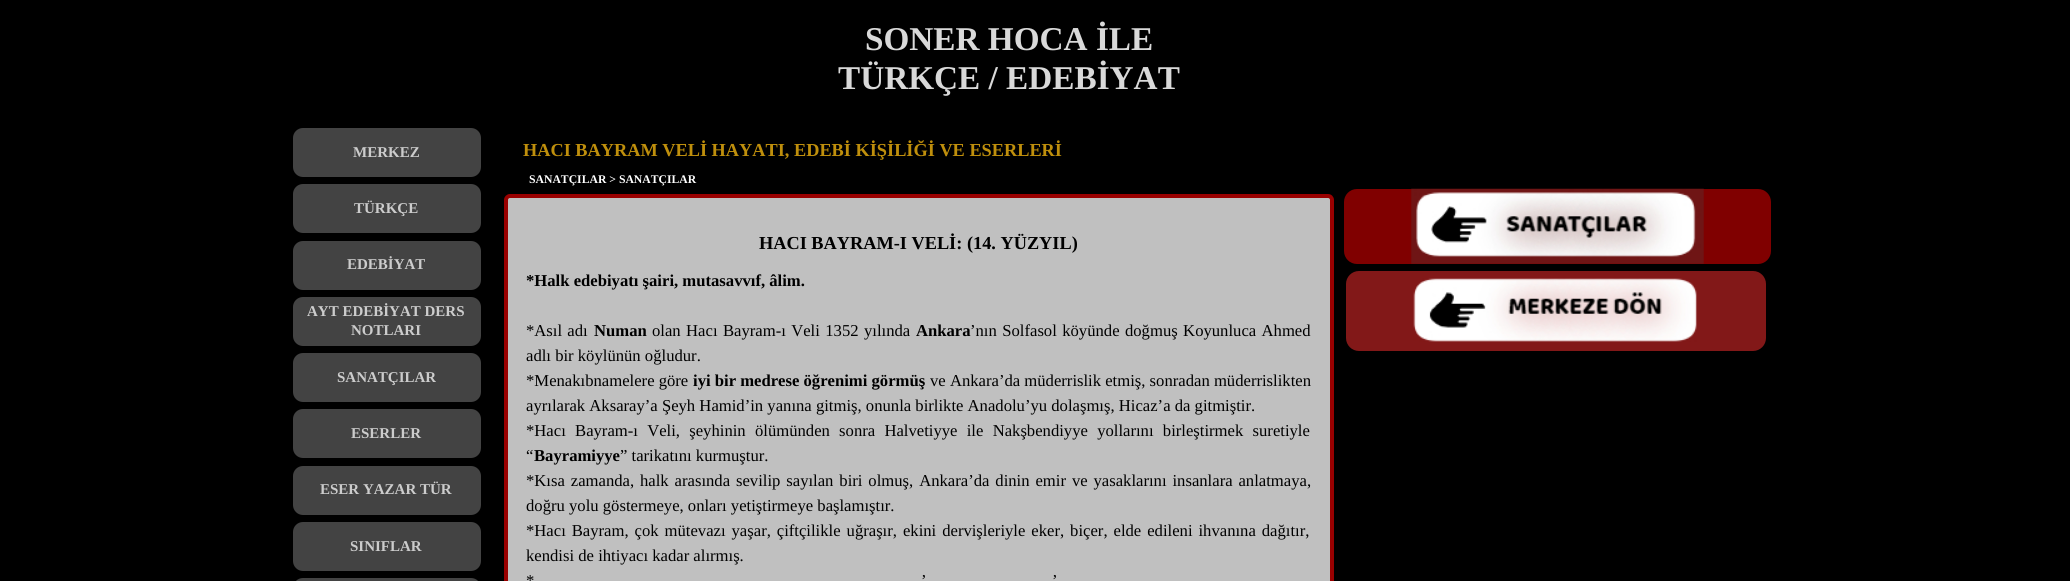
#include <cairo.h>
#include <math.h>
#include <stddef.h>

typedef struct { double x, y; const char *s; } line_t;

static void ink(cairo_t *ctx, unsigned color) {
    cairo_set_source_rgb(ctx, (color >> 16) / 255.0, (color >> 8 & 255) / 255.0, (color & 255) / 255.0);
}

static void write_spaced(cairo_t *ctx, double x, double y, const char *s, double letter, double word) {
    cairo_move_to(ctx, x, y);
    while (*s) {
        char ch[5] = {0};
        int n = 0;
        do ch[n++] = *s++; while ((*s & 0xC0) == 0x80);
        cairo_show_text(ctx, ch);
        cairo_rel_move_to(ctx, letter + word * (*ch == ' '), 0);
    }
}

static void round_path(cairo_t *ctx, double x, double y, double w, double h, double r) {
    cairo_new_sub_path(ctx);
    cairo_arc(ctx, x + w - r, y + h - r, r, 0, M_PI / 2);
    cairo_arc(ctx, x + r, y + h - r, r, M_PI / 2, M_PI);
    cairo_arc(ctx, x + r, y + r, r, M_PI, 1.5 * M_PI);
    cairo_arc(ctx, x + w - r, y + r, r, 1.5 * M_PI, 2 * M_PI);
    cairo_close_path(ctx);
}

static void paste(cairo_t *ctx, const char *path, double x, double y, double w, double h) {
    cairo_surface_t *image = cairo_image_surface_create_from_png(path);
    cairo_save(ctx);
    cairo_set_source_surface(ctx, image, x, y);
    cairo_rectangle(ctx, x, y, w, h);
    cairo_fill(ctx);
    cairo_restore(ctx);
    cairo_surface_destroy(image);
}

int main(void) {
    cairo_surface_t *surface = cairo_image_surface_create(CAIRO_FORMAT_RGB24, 2070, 581);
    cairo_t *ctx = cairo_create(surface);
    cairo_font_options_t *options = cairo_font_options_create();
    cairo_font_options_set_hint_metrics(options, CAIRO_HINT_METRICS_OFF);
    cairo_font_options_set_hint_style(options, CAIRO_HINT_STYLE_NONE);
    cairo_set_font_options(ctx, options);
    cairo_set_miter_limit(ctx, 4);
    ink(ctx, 0x000000);
    cairo_paint(ctx);
    cairo_select_font_face(ctx, "Liberation Serif", CAIRO_FONT_SLANT_NORMAL, CAIRO_FONT_WEIGHT_BOLD);
    cairo_set_font_size(ctx, 33.25);
    ink(ctx, 0xD9D9D9);
    cairo_move_to(ctx, 865, 50);
    cairo_show_text(ctx, "SONER HOCA İLE");
    cairo_move_to(ctx, 838, 89);
    cairo_show_text(ctx, "TÜRKÇE / EDEBİYAT");
    ink(ctx, 0x434343);
    round_path(ctx, 291.5, 126.5, 191, 52, 11.5);
    cairo_fill_preserve(ctx);
    ink(ctx, 0x000000);
    cairo_set_line_width(ctx, 3);
    cairo_stroke(ctx);
    cairo_set_font_size(ctx, 15);
    ink(ctx, 0xCCCCCC);
    cairo_move_to(ctx, 353, 157);
    cairo_show_text(ctx, "MERKEZ");
    ink(ctx, 0x434343);
    round_path(ctx, 291.5, 182.5, 191, 52, 11.5);
    cairo_fill_preserve(ctx);
    ink(ctx, 0x000000);
    cairo_stroke(ctx);
    ink(ctx, 0xCCCCCC);
    cairo_move_to(ctx, 354, 213);
    cairo_show_text(ctx, "TÜRKÇE");
    ink(ctx, 0x434343);
    round_path(ctx, 291.5, 239.5, 191, 52, 11.5);
    cairo_fill_preserve(ctx);
    ink(ctx, 0x000000);
    cairo_stroke(ctx);
    ink(ctx, 0xCCCCCC);
    cairo_move_to(ctx, 347, 269);
    cairo_show_text(ctx, "EDEBİYAT");
    ink(ctx, 0x434343);
    round_path(ctx, 291.5, 295.5, 191, 52, 11.5);
    cairo_fill_preserve(ctx);
    ink(ctx, 0x000000);
    cairo_stroke(ctx);
    ink(ctx, 0xCCCCCC);
    cairo_move_to(ctx, 307, 316);
    cairo_show_text(ctx, "AYT EDEBİYAT DERS");
    cairo_move_to(ctx, 351, 335);
    cairo_show_text(ctx, "NOTLARI");
    ink(ctx, 0x434343);
    round_path(ctx, 291.5, 351.5, 191, 52, 11.5);
    cairo_fill_preserve(ctx);
    ink(ctx, 0x000000);
    cairo_stroke(ctx);
    ink(ctx, 0xCCCCCC);
    cairo_move_to(ctx, 337, 382);
    cairo_show_text(ctx, "SANATÇILAR");
    ink(ctx, 0x434343);
    round_path(ctx, 291.5, 407.5, 191, 52, 11.5);
    cairo_fill_preserve(ctx);
    ink(ctx, 0x000000);
    cairo_stroke(ctx);
    ink(ctx, 0xCCCCCC);
    cairo_move_to(ctx, 351, 438);
    cairo_show_text(ctx, "ESERLER");
    ink(ctx, 0x434343);
    round_path(ctx, 291.5, 464.5, 191, 52, 11.5);
    cairo_fill_preserve(ctx);
    ink(ctx, 0x000000);
    cairo_stroke(ctx);
    ink(ctx, 0xCCCCCC);
    cairo_move_to(ctx, 320, 494);
    cairo_show_text(ctx, "ESER YAZAR TÜR");
    ink(ctx, 0x434343);
    round_path(ctx, 291.5, 520.5, 191, 52, 11.5);
    cairo_fill_preserve(ctx);
    ink(ctx, 0x000000);
    cairo_stroke(ctx);
    ink(ctx, 0xCCCCCC);
    cairo_move_to(ctx, 350, 551);
    cairo_show_text(ctx, "SINIFLAR");
    ink(ctx, 0x434343);
    round_path(ctx, 291.5, 576.5, 191, 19, 11.5);
    cairo_fill_preserve(ctx);
    ink(ctx, 0x000000);
    cairo_stroke(ctx);
    cairo_set_font_size(ctx, 18.3);
    ink(ctx, 0xBF8F0C);
    cairo_move_to(ctx, 523, 156);
    cairo_show_text(ctx, "HACI BAYRAM VELİ HAYATI, EDEBİ KİŞİLİĞİ VE ESERLERİ");
    cairo_set_font_size(ctx, 11.7);
    ink(ctx, 0xFFFFFF);
    cairo_move_to(ctx, 529, 183);
    cairo_show_text(ctx, "SANATÇILAR > SANATÇILAR");
    ink(ctx, 0xC0C0C0);
    round_path(ctx, 506, 196, 826, 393, 4);
    cairo_fill_preserve(ctx);
    ink(ctx, 0x990000);
    cairo_set_line_width(ctx, 4);
    cairo_stroke(ctx);
    cairo_set_font_size(ctx, 18.3);
    ink(ctx, 0x000000);
    cairo_move_to(ctx, 759, 249);
    cairo_show_text(ctx, "HACI BAYRAM-I VELİ: (14. YÜZYIL)");
    cairo_set_font_size(ctx, 16.65);
    cairo_move_to(ctx, 526, 286);
    cairo_show_text(ctx, "*Halk edebiyatı şairi, mutasavvıf, âlim.");
    cairo_select_font_face(ctx, "Liberation Serif", CAIRO_FONT_SLANT_NORMAL, CAIRO_FONT_WEIGHT_NORMAL);
    write_spaced(ctx, 526, 336, "*Asıl adı", 0, 1);
    cairo_select_font_face(ctx, "Liberation Serif", CAIRO_FONT_SLANT_NORMAL, CAIRO_FONT_WEIGHT_BOLD);
    cairo_move_to(ctx, 594, 336);
    cairo_show_text(ctx, "Numan");
    cairo_select_font_face(ctx, "Liberation Serif", CAIRO_FONT_SLANT_NORMAL, CAIRO_FONT_WEIGHT_NORMAL);
    write_spaced(ctx, 652, 336, "olan Hacı Bayram-ı Veli 1352 yılında", 0, 1.25);
    cairo_select_font_face(ctx, "Liberation Serif", CAIRO_FONT_SLANT_NORMAL, CAIRO_FONT_WEIGHT_BOLD);
    cairo_move_to(ctx, 916, 336);
    cairo_show_text(ctx, "Ankara");
    cairo_select_font_face(ctx, "Liberation Serif", CAIRO_FONT_SLANT_NORMAL, CAIRO_FONT_WEIGHT_NORMAL);
    write_spaced(ctx, 970, 336, "’nın Solfasol köyünde doğmuş Koyunluca Ahmed", 0, 1.25);
    cairo_move_to(ctx, 526, 361);
    cairo_show_text(ctx, "adlı bir köylünün oğludur.");
    cairo_move_to(ctx, 526, 386);
    cairo_show_text(ctx, "*Menakıbnamelere göre");
    cairo_select_font_face(ctx, "Liberation Serif", CAIRO_FONT_SLANT_NORMAL, CAIRO_FONT_WEIGHT_BOLD);
    cairo_move_to(ctx, 693, 386);
    cairo_show_text(ctx, "iyi bir medrese öğrenimi görmüş");
    cairo_select_font_face(ctx, "Liberation Serif", CAIRO_FONT_SLANT_NORMAL, CAIRO_FONT_WEIGHT_NORMAL);
    cairo_move_to(ctx, 930, 386);
    cairo_show_text(ctx, "ve Ankara’da müderrislik etmiş, sonradan müderrislikten");
    cairo_move_to(ctx, 526, 411);
    cairo_show_text(ctx, "ayrılarak Aksaray’a Şeyh Hamid’in yanına gitmiş, onunla birlikte Anadolu’yu dolaşmış, Hicaz’a da gitmiştir.");
    write_spaced(ctx, 526, 436, "*Hacı Bayram-ı Veli, şeyhinin ölümünden sonra Halvetiyye ile Nakşbendiyye yollarını birleştirmek suretiyle", 0, 5.1);
    cairo_move_to(ctx, 526, 461);
    cairo_show_text(ctx, "“");
    cairo_select_font_face(ctx, "Liberation Serif", CAIRO_FONT_SLANT_NORMAL, CAIRO_FONT_WEIGHT_BOLD);
    cairo_move_to(ctx, 534, 461);
    cairo_show_text(ctx, "Bayramiyye");
    cairo_select_font_face(ctx, "Liberation Serif", CAIRO_FONT_SLANT_NORMAL, CAIRO_FONT_WEIGHT_NORMAL);
    cairo_move_to(ctx, 620, 461);
    cairo_show_text(ctx, "” tarikatını kurmuştur.");
    write_spaced(ctx, 526, 486, "*Kısa zamanda, halk arasında sevilip sayılan biri olmuş, Ankara’da dinin emir ve yasaklarını insanlara anlatmaya,", 0, 1.75);
    cairo_move_to(ctx, 526, 511);
    cairo_show_text(ctx, "doğru yolu göstermeye, onları yetiştirmeye başlamıştır.");
    write_spaced(ctx, 526, 536, "*Hacı Bayram, çok mütevazı yaşar, çiftçilikle uğraşır, ekini dervişleriyle eker, biçer, elde edileni ihvanına dağıtır,", 0, 1.8);
    cairo_move_to(ctx, 526, 561);
    cairo_show_text(ctx, "kendisi de ihtiyacı kadar alırmış.");
    {
        static const line_t items[] = {
            {526, 586, "*"},
            {921, 586, "’"},
            {1052, 586, "’"},
        };
        for (size_t i = 0; i < sizeof items / sizeof *items; i++) {
            write_spaced(ctx, items[i].x, items[i].y, items[i].s, 0, 1);
        }
    }
    ink(ctx, 0x800000);
    round_path(ctx, 1344, 189, 427, 75, 13);
    cairo_fill(ctx);
    paste(ctx, "media/1.png", 1411, 188, 293, 76);
    ink(ctx, 0x821818);
    round_path(ctx, 1346, 271, 420, 80, 13);
    cairo_fill(ctx);
    paste(ctx, "media/2.png", 1413, 278, 284, 64);
    cairo_surface_write_to_png(surface, "image.png");
    cairo_font_options_destroy(options);
    cairo_destroy(ctx);
    cairo_surface_destroy(surface);
    return 0;
}
